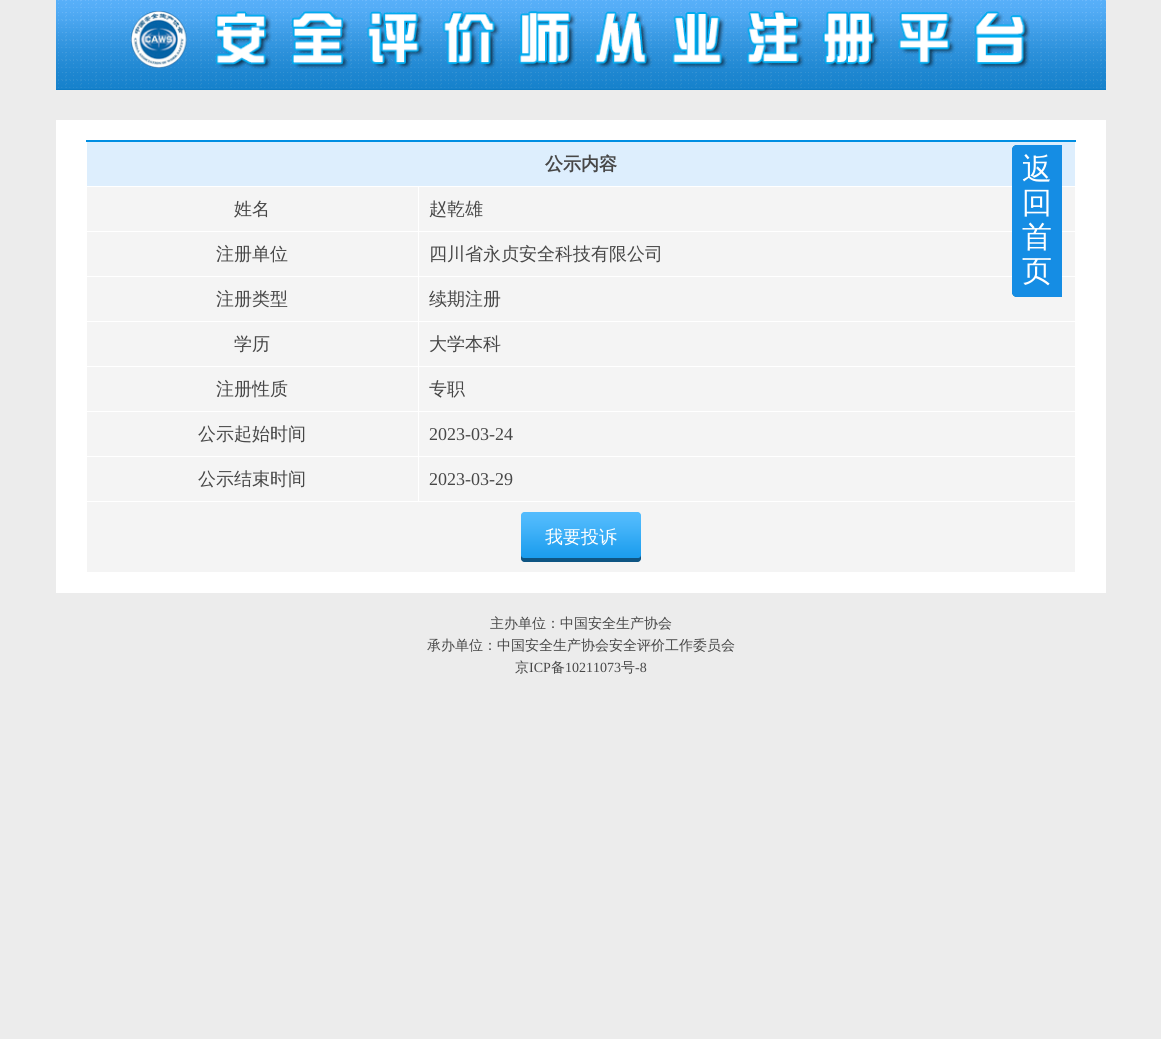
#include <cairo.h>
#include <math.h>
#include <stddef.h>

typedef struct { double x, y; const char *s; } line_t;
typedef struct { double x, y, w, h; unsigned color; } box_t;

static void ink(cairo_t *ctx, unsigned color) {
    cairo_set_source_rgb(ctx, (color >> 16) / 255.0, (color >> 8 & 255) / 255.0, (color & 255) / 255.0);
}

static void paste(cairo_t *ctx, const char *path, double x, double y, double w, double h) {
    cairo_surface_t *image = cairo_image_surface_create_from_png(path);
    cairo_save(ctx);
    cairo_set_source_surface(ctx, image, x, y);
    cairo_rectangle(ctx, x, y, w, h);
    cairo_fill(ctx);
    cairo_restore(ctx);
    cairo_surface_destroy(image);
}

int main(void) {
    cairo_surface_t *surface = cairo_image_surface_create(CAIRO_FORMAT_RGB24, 1161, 1039);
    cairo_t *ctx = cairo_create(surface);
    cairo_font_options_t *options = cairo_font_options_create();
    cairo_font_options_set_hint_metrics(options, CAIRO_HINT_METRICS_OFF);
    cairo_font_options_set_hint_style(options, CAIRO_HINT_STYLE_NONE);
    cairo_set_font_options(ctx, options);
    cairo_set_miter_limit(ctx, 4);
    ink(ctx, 0xECECEC);
    cairo_paint(ctx);
    paste(ctx, "media/1.png", 56, 0, 1050, 90);
    paste(ctx, "media/2.png", 131, 10, 899, 59);
    {
        static const box_t items[] = {
            {56, 120, 1050, 473, 0xFFFFFF},
            {87, 187, 988, 385, 0xF4F4F4},
            {86, 140, 990, 2, 0x008EE2},
            {87, 142, 988, 44, 0xDDEEFD},
        };
        for (size_t i = 0; i < sizeof items / sizeof *items; i++) {
            ink(ctx, items[i].color);
            cairo_rectangle(ctx, items[i].x, items[i].y, items[i].w, items[i].h);
            cairo_fill(ctx);
        }
    }
    cairo_select_font_face(ctx, "WenQuanYi Zen Hei", CAIRO_FONT_SLANT_NORMAL, CAIRO_FONT_WEIGHT_BOLD);
    cairo_set_font_size(ctx, 18);
    ink(ctx, 0x474747);
    cairo_move_to(ctx, 545, 170);
    cairo_show_text(ctx, "公示内容");
    cairo_select_font_face(ctx, "WenQuanYi Zen Hei Medium", CAIRO_FONT_SLANT_NORMAL, CAIRO_FONT_WEIGHT_NORMAL);
    cairo_move_to(ctx, 234, 215);
    cairo_show_text(ctx, "姓名");
    {
        static const box_t items[] = {
            {418, 231, 658, 1, 0xFFFFFF},
            {418, 276, 658, 1, 0xFFFFFF},
            {418, 321, 658, 1, 0xFFFFFF},
            {418, 366, 658, 1, 0xFFFFFF},
            {418, 411, 658, 1, 0xFFFFFF},
            {418, 456, 658, 1, 0xFFFFFF},
            {86, 501, 990, 1, 0xFFFFFF},
            {418, 456, 1, 46, 0xFFFFFF},
            {86, 456, 333, 1, 0xFFFFFF},
            {418, 411, 1, 46, 0xFFFFFF},
            {86, 411, 333, 1, 0xFFFFFF},
            {418, 366, 1, 46, 0xFFFFFF},
            {86, 366, 333, 1, 0xFFFFFF},
            {418, 321, 1, 46, 0xFFFFFF},
            {86, 321, 333, 1, 0xFFFFFF},
            {418, 276, 1, 46, 0xFFFFFF},
            {86, 276, 333, 1, 0xFFFFFF},
            {418, 231, 1, 46, 0xFFFFFF},
            {86, 231, 333, 1, 0xFFFFFF},
            {418, 186, 1, 46, 0xFFFFFF},
        };
        for (size_t i = 0; i < sizeof items / sizeof *items; i++) {
            ink(ctx, items[i].color);
            cairo_rectangle(ctx, items[i].x, items[i].y, items[i].w, items[i].h);
            cairo_fill(ctx);
        }
    }
    ink(ctx, 0x474747);
    {
        static const line_t items[] = {
            {429, 215, "赵乾雄"},
            {216, 260, "注册单位"},
            {429, 260, "四川省永贞安全科技有限公司"},
            {216, 305, "注册类型"},
            {429, 305, "续期注册"},
            {234, 350, "学历"},
            {429, 350, "大学本科"},
            {216, 395, "注册性质"},
            {429, 395, "专职"},
            {198, 440, "公示起始时间"},
        };
        for (size_t i = 0; i < sizeof items / sizeof *items; i++) {
            cairo_move_to(ctx, items[i].x, items[i].y);
            cairo_show_text(ctx, items[i].s);
        }
    }
    cairo_select_font_face(ctx, "Liberation Serif", CAIRO_FONT_SLANT_NORMAL, CAIRO_FONT_WEIGHT_NORMAL);
    cairo_move_to(ctx, 429, 440);
    cairo_show_text(ctx, "2023-03-24");
    cairo_select_font_face(ctx, "WenQuanYi Zen Hei Medium", CAIRO_FONT_SLANT_NORMAL, CAIRO_FONT_WEIGHT_NORMAL);
    cairo_move_to(ctx, 198, 485);
    cairo_show_text(ctx, "公示结束时间");
    cairo_select_font_face(ctx, "Liberation Serif", CAIRO_FONT_SLANT_NORMAL, CAIRO_FONT_WEIGHT_NORMAL);
    cairo_move_to(ctx, 429, 485);
    cairo_show_text(ctx, "2023-03-29");
    paste(ctx, "media/3.png", 521, 512, 120, 50);
    cairo_select_font_face(ctx, "WenQuanYi Zen Hei Medium", CAIRO_FONT_SLANT_NORMAL, CAIRO_FONT_WEIGHT_NORMAL);
    ink(ctx, 0xFFFFFF);
    cairo_move_to(ctx, 545, 543);
    cairo_show_text(ctx, "我要投诉");
    paste(ctx, "media/4.png", 1012, 145, 50, 152);
    cairo_set_font_size(ctx, 30);
    {
        static const line_t items[] = {
            {1022, 179, "返"},
            {1022, 213, "回"},
            {1022, 247, "首"},
            {1022, 281, "页"},
        };
        for (size_t i = 0; i < sizeof items / sizeof *items; i++) {
            cairo_move_to(ctx, items[i].x, items[i].y);
            cairo_show_text(ctx, items[i].s);
        }
    }
    cairo_set_font_size(ctx, 14);
    ink(ctx, 0x474747);
    {
        static const line_t items[] = {
            {490, 628, "主办单位：中国安全生产协会"},
            {427, 650, "承办单位：中国安全生产协会安全评价工作委员会"},
            {515, 672, "京"},
        };
        for (size_t i = 0; i < sizeof items / sizeof *items; i++) {
            cairo_move_to(ctx, items[i].x, items[i].y);
            cairo_show_text(ctx, items[i].s);
        }
    }
    cairo_select_font_face(ctx, "Liberation Serif", CAIRO_FONT_SLANT_NORMAL, CAIRO_FONT_WEIGHT_NORMAL);
    cairo_move_to(ctx, 529, 672);
    cairo_show_text(ctx, "ICP");
    cairo_select_font_face(ctx, "WenQuanYi Zen Hei Medium", CAIRO_FONT_SLANT_NORMAL, CAIRO_FONT_WEIGHT_NORMAL);
    cairo_move_to(ctx, 551, 672);
    cairo_show_text(ctx, "备");
    cairo_select_font_face(ctx, "Liberation Serif", CAIRO_FONT_SLANT_NORMAL, CAIRO_FONT_WEIGHT_NORMAL);
    cairo_move_to(ctx, 565, 672);
    cairo_show_text(ctx, "10211073");
    cairo_select_font_face(ctx, "WenQuanYi Zen Hei Medium", CAIRO_FONT_SLANT_NORMAL, CAIRO_FONT_WEIGHT_NORMAL);
    cairo_move_to(ctx, 621, 672);
    cairo_show_text(ctx, "号");
    cairo_select_font_face(ctx, "Liberation Serif", CAIRO_FONT_SLANT_NORMAL, CAIRO_FONT_WEIGHT_NORMAL);
    cairo_move_to(ctx, 635, 672);
    cairo_show_text(ctx, "-8");
    cairo_surface_write_to_png(surface, "image.png");
    cairo_font_options_destroy(options);
    cairo_destroy(ctx);
    cairo_surface_destroy(surface);
    return 0;
}
